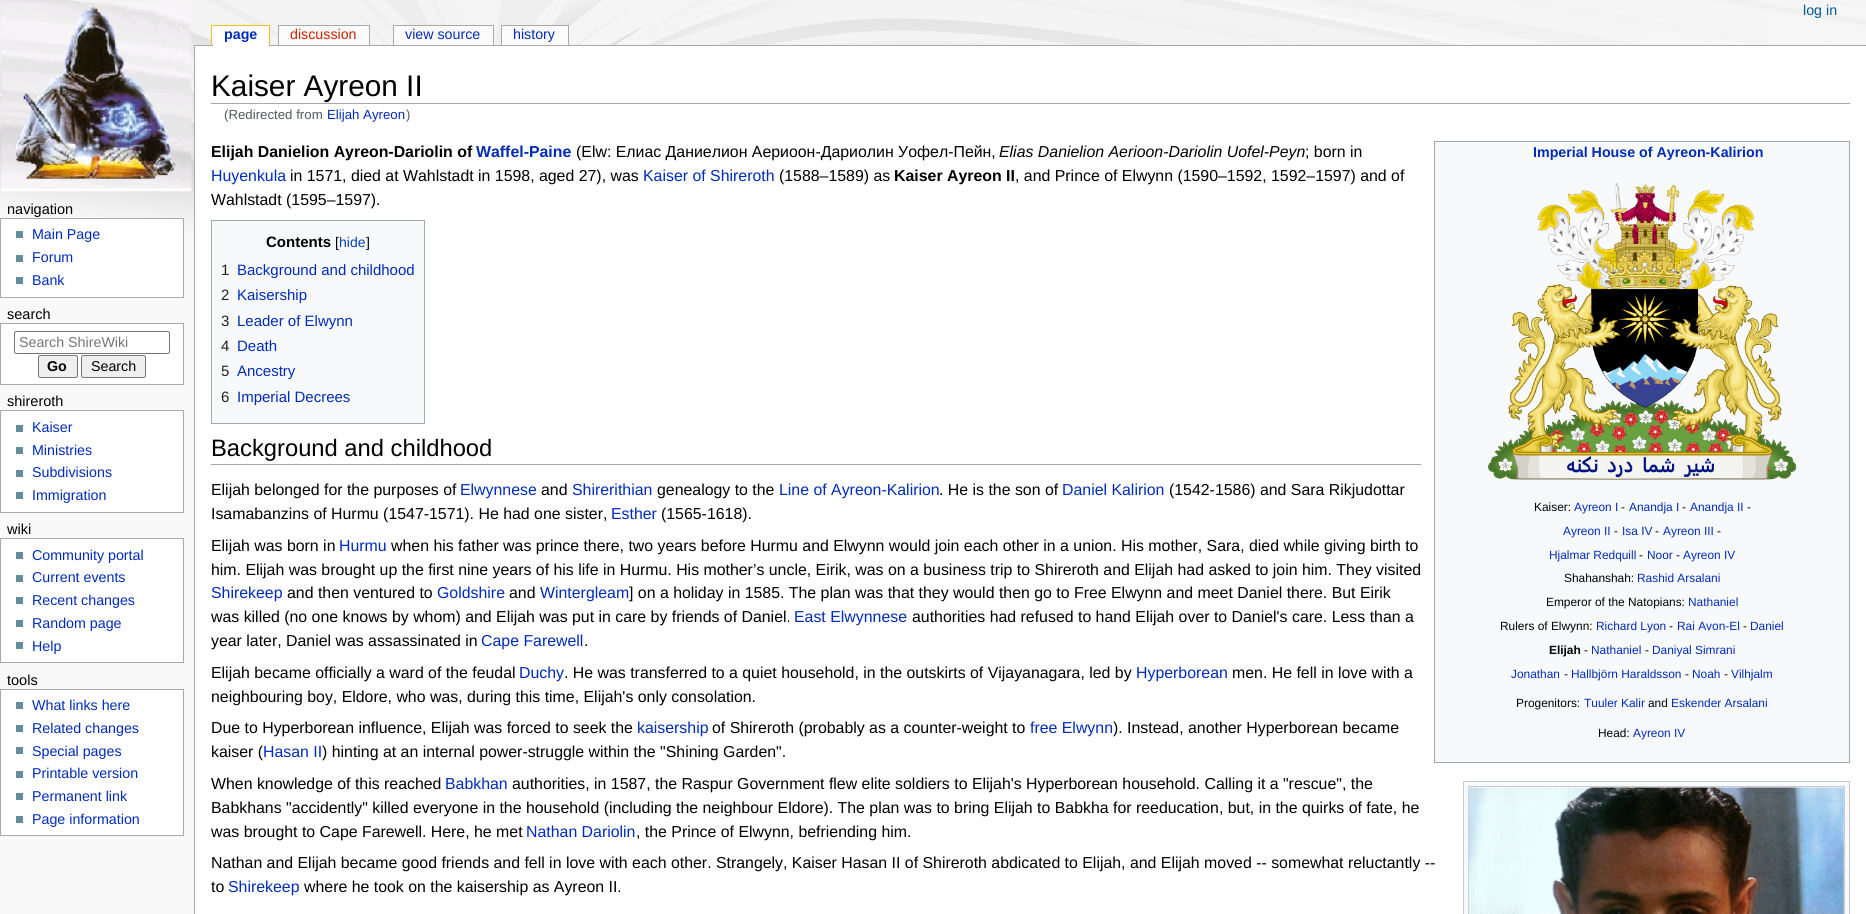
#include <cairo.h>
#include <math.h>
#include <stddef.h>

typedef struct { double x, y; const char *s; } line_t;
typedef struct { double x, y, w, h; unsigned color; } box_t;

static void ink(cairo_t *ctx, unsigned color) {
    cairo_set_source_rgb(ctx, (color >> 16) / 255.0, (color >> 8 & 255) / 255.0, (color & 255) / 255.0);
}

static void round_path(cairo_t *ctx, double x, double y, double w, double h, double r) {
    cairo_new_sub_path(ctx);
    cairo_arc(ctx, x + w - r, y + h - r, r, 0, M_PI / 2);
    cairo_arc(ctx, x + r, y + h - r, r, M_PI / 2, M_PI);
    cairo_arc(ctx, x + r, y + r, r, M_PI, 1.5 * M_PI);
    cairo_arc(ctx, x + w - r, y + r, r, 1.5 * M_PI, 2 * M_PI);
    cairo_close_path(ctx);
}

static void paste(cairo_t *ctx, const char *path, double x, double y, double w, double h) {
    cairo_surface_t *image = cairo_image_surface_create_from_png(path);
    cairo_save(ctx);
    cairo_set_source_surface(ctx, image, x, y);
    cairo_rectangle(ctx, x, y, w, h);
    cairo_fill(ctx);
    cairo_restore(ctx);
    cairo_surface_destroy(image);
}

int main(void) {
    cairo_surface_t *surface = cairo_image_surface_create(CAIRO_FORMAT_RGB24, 1866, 914);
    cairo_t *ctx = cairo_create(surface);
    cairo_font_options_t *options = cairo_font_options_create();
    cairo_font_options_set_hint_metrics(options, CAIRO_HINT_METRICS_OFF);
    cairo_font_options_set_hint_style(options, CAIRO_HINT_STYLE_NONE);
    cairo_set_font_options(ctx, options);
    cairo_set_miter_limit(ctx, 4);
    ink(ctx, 0xF9F9F9);
    cairo_paint(ctx);
    paste(ctx, "media/1.png", 0, 0, 1866, 263);
    paste(ctx, "media/2.png", 1, 2, 191, 190);
    cairo_select_font_face(ctx, "Liberation Sans", CAIRO_FONT_SLANT_NORMAL, CAIRO_FONT_WEIGHT_NORMAL);
    cairo_set_font_size(ctx, 14.25);
    ink(ctx, 0x005896);
    cairo_move_to(ctx, 1803, 15);
    cairo_show_text(ctx, "log in");
    ink(ctx, 0xAAAAAA);
    cairo_rectangle(ctx, 194, 45, 1672, 1);
    cairo_fill(ctx);
    ink(ctx, 0xFFFFFF);
    cairo_rectangle(ctx, 213, 26, 56, 20);
    cairo_fill(ctx);
    cairo_select_font_face(ctx, "Liberation Sans", CAIRO_FONT_SLANT_NORMAL, CAIRO_FONT_WEIGHT_BOLD);
    ink(ctx, 0x002BB8);
    cairo_move_to(ctx, 224, 39);
    cairo_show_text(ctx, "page");
    {
        static const box_t items[] = {
            {212, 26, 1, 19, 0xFFFFFF},
            {211, 25, 59, 1, 0xFABD23},
            {269, 25, 1, 20, 0xFABD23},
            {211, 25, 1, 20, 0xFABD23},
            {279, 26, 90, 19, 0xFBFBFB},
        };
        for (size_t i = 0; i < sizeof items / sizeof *items; i++) {
            ink(ctx, items[i].color);
            cairo_rectangle(ctx, items[i].x, items[i].y, items[i].w, items[i].h);
            cairo_fill(ctx);
        }
    }
    cairo_select_font_face(ctx, "Liberation Sans", CAIRO_FONT_SLANT_NORMAL, CAIRO_FONT_WEIGHT_NORMAL);
    ink(ctx, 0xCC2200);
    cairo_move_to(ctx, 290, 39);
    cairo_show_text(ctx, "discussion");
    {
        static const box_t items[] = {
            {278, 25, 92, 1, 0xAAAAAA},
            {369, 25, 1, 20, 0xAAAAAA},
            {278, 25, 1, 20, 0xAAAAAA},
            {394, 26, 99, 19, 0xFBFBFB},
        };
        for (size_t i = 0; i < sizeof items / sizeof *items; i++) {
            ink(ctx, items[i].color);
            cairo_rectangle(ctx, items[i].x, items[i].y, items[i].w, items[i].h);
            cairo_fill(ctx);
        }
    }
    ink(ctx, 0x002BB8);
    cairo_move_to(ctx, 405, 39);
    cairo_show_text(ctx, "view source");
    {
        static const box_t items[] = {
            {393, 25, 101, 1, 0xAAAAAA},
            {493, 25, 1, 20, 0xAAAAAA},
            {393, 25, 1, 20, 0xAAAAAA},
            {503, 26, 65, 19, 0xFBFBFB},
        };
        for (size_t i = 0; i < sizeof items / sizeof *items; i++) {
            ink(ctx, items[i].color);
            cairo_rectangle(ctx, items[i].x, items[i].y, items[i].w, items[i].h);
            cairo_fill(ctx);
        }
    }
    ink(ctx, 0x002BB8);
    cairo_move_to(ctx, 513, 39);
    cairo_show_text(ctx, "history");
    {
        static const box_t items[] = {
            {502, 26, 1, 19, 0xFFFFFF},
            {501, 25, 68, 1, 0xAAAAAA},
            {568, 25, 1, 20, 0xAAAAAA},
            {501, 25, 1, 20, 0xAAAAAA},
        };
        for (size_t i = 0; i < sizeof items / sizeof *items; i++) {
            ink(ctx, items[i].color);
            cairo_rectangle(ctx, items[i].x, items[i].y, items[i].w, items[i].h);
            cairo_fill(ctx);
        }
    }
    cairo_set_font_size(ctx, 14.5);
    ink(ctx, 0x000000);
    cairo_move_to(ctx, 7, 214);
    cairo_show_text(ctx, "navigation");
    ink(ctx, 0xFFFFFF);
    cairo_rectangle(ctx, 0.5, 218.5, 183, 79);
    cairo_fill_preserve(ctx);
    ink(ctx, 0xAAAAAA);
    cairo_set_line_width(ctx, 1);
    cairo_stroke(ctx);
    ink(ctx, 0x638C9C);
    cairo_rectangle(ctx, 16, 231, 7, 7);
    cairo_fill(ctx);
    cairo_set_font_size(ctx, 14.25);
    ink(ctx, 0x002BB8);
    cairo_move_to(ctx, 32, 239);
    cairo_show_text(ctx, "Main Page");
    ink(ctx, 0x638C9C);
    cairo_rectangle(ctx, 16, 255, 7, 7);
    cairo_fill(ctx);
    ink(ctx, 0x002BB8);
    cairo_move_to(ctx, 32, 262);
    cairo_show_text(ctx, "Forum");
    ink(ctx, 0x638C9C);
    cairo_rectangle(ctx, 16, 277, 7, 7);
    cairo_fill(ctx);
    ink(ctx, 0x002BB8);
    cairo_move_to(ctx, 32, 285);
    cairo_show_text(ctx, "Bank");
    cairo_set_font_size(ctx, 14.5);
    ink(ctx, 0x000000);
    cairo_move_to(ctx, 7, 319);
    cairo_show_text(ctx, "search");
    ink(ctx, 0xFFFFFF);
    cairo_rectangle(ctx, 0.5, 323.5, 183, 61);
    cairo_fill_preserve(ctx);
    ink(ctx, 0xAAAAAA);
    cairo_stroke(ctx);
    round_path(ctx, 14.5, 331.5, 155, 22, 2);
    ink(ctx, 0x767676);
    cairo_stroke(ctx);
    cairo_set_font_size(ctx, 14.25);
    ink(ctx, 0x757575);
    cairo_move_to(ctx, 19, 347);
    cairo_show_text(ctx, "Search ShireWiki");
    ink(ctx, 0xEFEFEF);
    round_path(ctx, 38.5, 355.5, 39, 22, 2);
    cairo_fill_preserve(ctx);
    ink(ctx, 0x767676);
    cairo_stroke(ctx);
    cairo_select_font_face(ctx, "Liberation Sans", CAIRO_FONT_SLANT_NORMAL, CAIRO_FONT_WEIGHT_BOLD);
    ink(ctx, 0x000000);
    cairo_move_to(ctx, 47, 371);
    cairo_show_text(ctx, "Go");
    ink(ctx, 0xEFEFEF);
    round_path(ctx, 81.5, 355.5, 64, 22, 2);
    cairo_fill_preserve(ctx);
    ink(ctx, 0x767676);
    cairo_stroke(ctx);
    cairo_select_font_face(ctx, "Liberation Sans", CAIRO_FONT_SLANT_NORMAL, CAIRO_FONT_WEIGHT_NORMAL);
    ink(ctx, 0x000000);
    cairo_move_to(ctx, 91, 371);
    cairo_show_text(ctx, "Search");
    cairo_set_font_size(ctx, 14.5);
    cairo_move_to(ctx, 7, 406);
    cairo_show_text(ctx, "shireroth");
    ink(ctx, 0xFFFFFF);
    cairo_rectangle(ctx, 0.5, 410.5, 183, 102);
    cairo_fill_preserve(ctx);
    ink(ctx, 0xAAAAAA);
    cairo_stroke(ctx);
    ink(ctx, 0x638C9C);
    cairo_rectangle(ctx, 16, 425, 7, 7);
    cairo_fill(ctx);
    cairo_set_font_size(ctx, 14.25);
    ink(ctx, 0x002BB8);
    cairo_move_to(ctx, 32, 432);
    cairo_show_text(ctx, "Kaiser");
    ink(ctx, 0x638C9C);
    cairo_rectangle(ctx, 16, 447, 7, 7);
    cairo_fill(ctx);
    ink(ctx, 0x002BB8);
    cairo_move_to(ctx, 32, 455);
    cairo_show_text(ctx, "Ministries");
    ink(ctx, 0x638C9C);
    cairo_rectangle(ctx, 16, 470, 7, 7);
    cairo_fill(ctx);
    ink(ctx, 0x002BB8);
    cairo_move_to(ctx, 32, 477);
    cairo_show_text(ctx, "Subdivisions");
    ink(ctx, 0x638C9C);
    cairo_rectangle(ctx, 16, 492, 7, 7);
    cairo_fill(ctx);
    ink(ctx, 0x002BB8);
    cairo_move_to(ctx, 32, 500);
    cairo_show_text(ctx, "Immigration");
    cairo_set_font_size(ctx, 14.5);
    ink(ctx, 0x000000);
    cairo_move_to(ctx, 7, 534);
    cairo_show_text(ctx, "wiki");
    ink(ctx, 0xFFFFFF);
    cairo_rectangle(ctx, 0.5, 538.5, 183, 124);
    cairo_fill_preserve(ctx);
    ink(ctx, 0xAAAAAA);
    cairo_stroke(ctx);
    ink(ctx, 0x638C9C);
    cairo_rectangle(ctx, 16, 552, 7, 7);
    cairo_fill(ctx);
    cairo_set_font_size(ctx, 14.25);
    ink(ctx, 0x002BB8);
    cairo_move_to(ctx, 32, 560);
    cairo_show_text(ctx, "Community portal");
    ink(ctx, 0x638C9C);
    cairo_rectangle(ctx, 16, 575, 7, 7);
    cairo_fill(ctx);
    ink(ctx, 0x002BB8);
    cairo_move_to(ctx, 32, 582);
    cairo_show_text(ctx, "Current events");
    ink(ctx, 0x638C9C);
    cairo_rectangle(ctx, 16, 597, 7, 7);
    cairo_fill(ctx);
    ink(ctx, 0x002BB8);
    cairo_move_to(ctx, 32, 605);
    cairo_show_text(ctx, "Recent changes");
    ink(ctx, 0x638C9C);
    cairo_rectangle(ctx, 16, 620, 7, 7);
    cairo_fill(ctx);
    ink(ctx, 0x002BB8);
    cairo_move_to(ctx, 32, 628);
    cairo_show_text(ctx, "Random page");
    ink(ctx, 0x638C9C);
    cairo_rectangle(ctx, 16, 642, 7, 7);
    cairo_fill(ctx);
    ink(ctx, 0x002BB8);
    cairo_move_to(ctx, 32, 651);
    cairo_show_text(ctx, "Help");
    cairo_set_font_size(ctx, 14.5);
    ink(ctx, 0x000000);
    cairo_move_to(ctx, 7, 685);
    cairo_show_text(ctx, "tools");
    ink(ctx, 0xFFFFFF);
    cairo_rectangle(ctx, 0.5, 689.5, 183, 146);
    cairo_fill_preserve(ctx);
    ink(ctx, 0xAAAAAA);
    cairo_stroke(ctx);
    ink(ctx, 0x638C9C);
    cairo_rectangle(ctx, 16, 702, 7, 7);
    cairo_fill(ctx);
    cairo_set_font_size(ctx, 14.25);
    ink(ctx, 0x002BB8);
    cairo_move_to(ctx, 32, 710);
    cairo_show_text(ctx, "What links here");
    ink(ctx, 0x638C9C);
    cairo_rectangle(ctx, 16, 725, 7, 7);
    cairo_fill(ctx);
    ink(ctx, 0x002BB8);
    cairo_move_to(ctx, 32, 733);
    cairo_show_text(ctx, "Related changes");
    ink(ctx, 0x638C9C);
    cairo_rectangle(ctx, 16, 747, 7, 7);
    cairo_fill(ctx);
    ink(ctx, 0x002BB8);
    cairo_move_to(ctx, 32, 756);
    cairo_show_text(ctx, "Special pages");
    ink(ctx, 0x638C9C);
    cairo_rectangle(ctx, 16, 771, 7, 7);
    cairo_fill(ctx);
    ink(ctx, 0x002BB8);
    cairo_move_to(ctx, 32, 778);
    cairo_show_text(ctx, "Printable version");
    ink(ctx, 0x638C9C);
    cairo_rectangle(ctx, 16, 793, 7, 7);
    cairo_fill(ctx);
    ink(ctx, 0x002BB8);
    cairo_move_to(ctx, 32, 801);
    cairo_show_text(ctx, "Permanent link");
    ink(ctx, 0x638C9C);
    cairo_rectangle(ctx, 16, 816, 7, 7);
    cairo_fill(ctx);
    ink(ctx, 0x002BB8);
    cairo_move_to(ctx, 32, 824);
    cairo_show_text(ctx, "Page information");
    {
        static const box_t items[] = {
            {195, 46, 1671, 868, 0xFFFFFF},
            {194, 45, 1, 869, 0xAAAAAA},
            {211, 103, 1639, 1, 0xA2A9B1},
        };
        for (size_t i = 0; i < sizeof items / sizeof *items; i++) {
            ink(ctx, items[i].color);
            cairo_rectangle(ctx, items[i].x, items[i].y, items[i].w, items[i].h);
            cairo_fill(ctx);
        }
    }
    cairo_set_font_size(ctx, 29.75);
    ink(ctx, 0x000000);
    cairo_move_to(ctx, 211, 96);
    cairo_show_text(ctx, "Kaiser Ayreon II");
    cairo_set_font_size(ctx, 13.25);
    ink(ctx, 0x54595D);
    cairo_move_to(ctx, 224, 119);
    cairo_show_text(ctx, "(Redirected from");
    ink(ctx, 0x002BB8);
    cairo_move_to(ctx, 327, 119);
    cairo_show_text(ctx, "Elijah Ayreon");
    ink(ctx, 0x54595D);
    cairo_move_to(ctx, 406, 119);
    cairo_show_text(ctx, ")");
    cairo_select_font_face(ctx, "Liberation Sans", CAIRO_FONT_SLANT_NORMAL, CAIRO_FONT_WEIGHT_BOLD);
    cairo_set_font_size(ctx, 15.88);
    ink(ctx, 0x000000);
    cairo_move_to(ctx, 211, 157);
    cairo_show_text(ctx, "Elijah Danielion Ayreon-Dariolin of");
    ink(ctx, 0x002BB8);
    cairo_move_to(ctx, 476, 157);
    cairo_show_text(ctx, "Waffel-Paine");
    cairo_select_font_face(ctx, "Liberation Sans", CAIRO_FONT_SLANT_NORMAL, CAIRO_FONT_WEIGHT_NORMAL);
    ink(ctx, 0x000000);
    cairo_move_to(ctx, 576, 157);
    cairo_show_text(ctx, "(Elw: Елиас Даниелион Аериоон-Дариолин Уофел-Пейн,");
    cairo_select_font_face(ctx, "Liberation Sans", CAIRO_FONT_SLANT_ITALIC, CAIRO_FONT_WEIGHT_NORMAL);
    cairo_move_to(ctx, 999, 157);
    cairo_show_text(ctx, "Elias Danielion Aerioon-Dariolin Uofel-Peyn");
    cairo_select_font_face(ctx, "Liberation Sans", CAIRO_FONT_SLANT_NORMAL, CAIRO_FONT_WEIGHT_NORMAL);
    cairo_move_to(ctx, 1305, 157);
    cairo_show_text(ctx, "; born in");
    ink(ctx, 0x002BB8);
    cairo_move_to(ctx, 211, 181);
    cairo_show_text(ctx, "Huyenkula");
    ink(ctx, 0x000000);
    cairo_move_to(ctx, 290, 181);
    cairo_show_text(ctx, "in 1571, died at Wahlstadt in 1598, aged 27), was");
    ink(ctx, 0x002BB8);
    cairo_move_to(ctx, 643, 181);
    cairo_show_text(ctx, "Kaiser of Shireroth");
    ink(ctx, 0x000000);
    cairo_move_to(ctx, 779, 181);
    cairo_show_text(ctx, "(1588–1589) as");
    cairo_select_font_face(ctx, "Liberation Sans", CAIRO_FONT_SLANT_NORMAL, CAIRO_FONT_WEIGHT_BOLD);
    cairo_move_to(ctx, 894, 181);
    cairo_show_text(ctx, "Kaiser Ayreon II");
    cairo_select_font_face(ctx, "Liberation Sans", CAIRO_FONT_SLANT_NORMAL, CAIRO_FONT_WEIGHT_NORMAL);
    cairo_move_to(ctx, 1015, 181);
    cairo_show_text(ctx, ", and Prince of Elwynn (1590–1592, 1592–1597) and of");
    cairo_move_to(ctx, 211, 205);
    cairo_show_text(ctx, "Wahlstadt (1595–1597).");
    ink(ctx, 0xF8F9FA);
    cairo_rectangle(ctx, 1434.5, 141.5, 415, 621);
    cairo_fill_preserve(ctx);
    ink(ctx, 0xA2A9B1);
    cairo_stroke(ctx);
    cairo_select_font_face(ctx, "Liberation Sans", CAIRO_FONT_SLANT_NORMAL, CAIRO_FONT_WEIGHT_BOLD);
    cairo_set_font_size(ctx, 14.25);
    ink(ctx, 0x002BB8);
    cairo_move_to(ctx, 1533, 157);
    cairo_show_text(ctx, "Imperial House of Ayreon-Kalirion");
    paste(ctx, "media/3.png", 1488, 182, 309, 298);
    cairo_select_font_face(ctx, "Liberation Sans", CAIRO_FONT_SLANT_NORMAL, CAIRO_FONT_WEIGHT_NORMAL);
    cairo_set_font_size(ctx, 11.9);
    ink(ctx, 0x000000);
    cairo_move_to(ctx, 1534, 511);
    cairo_show_text(ctx, "Kaiser:");
    ink(ctx, 0x002BB8);
    cairo_move_to(ctx, 1574, 511);
    cairo_show_text(ctx, "Ayreon I");
    ink(ctx, 0x000000);
    cairo_move_to(ctx, 1621, 511);
    cairo_show_text(ctx, "-");
    ink(ctx, 0x002BB8);
    cairo_move_to(ctx, 1629, 511);
    cairo_show_text(ctx, "Anandja I");
    ink(ctx, 0x000000);
    cairo_move_to(ctx, 1682, 511);
    cairo_show_text(ctx, "-");
    ink(ctx, 0x002BB8);
    cairo_move_to(ctx, 1690, 511);
    cairo_show_text(ctx, "Anandja II");
    ink(ctx, 0x000000);
    cairo_move_to(ctx, 1747, 511);
    cairo_show_text(ctx, "-");
    ink(ctx, 0x002BB8);
    cairo_move_to(ctx, 1563, 535);
    cairo_show_text(ctx, "Ayreon II");
    ink(ctx, 0x000000);
    cairo_move_to(ctx, 1614, 535);
    cairo_show_text(ctx, "-");
    ink(ctx, 0x002BB8);
    cairo_move_to(ctx, 1622, 535);
    cairo_show_text(ctx, "Isa IV");
    ink(ctx, 0x000000);
    cairo_move_to(ctx, 1655, 535);
    cairo_show_text(ctx, "-");
    ink(ctx, 0x002BB8);
    cairo_move_to(ctx, 1663, 535);
    cairo_show_text(ctx, "Ayreon III");
    ink(ctx, 0x000000);
    cairo_move_to(ctx, 1717, 535);
    cairo_show_text(ctx, "-");
    ink(ctx, 0x002BB8);
    cairo_move_to(ctx, 1549, 559);
    cairo_show_text(ctx, "Hjalmar Redquill");
    ink(ctx, 0x000000);
    cairo_move_to(ctx, 1639, 559);
    cairo_show_text(ctx, "-");
    ink(ctx, 0x002BB8);
    cairo_move_to(ctx, 1647, 559);
    cairo_show_text(ctx, "Noor");
    ink(ctx, 0x000000);
    cairo_move_to(ctx, 1676, 559);
    cairo_show_text(ctx, "-");
    ink(ctx, 0x002BB8);
    cairo_move_to(ctx, 1683, 559);
    cairo_show_text(ctx, "Ayreon IV");
    ink(ctx, 0x000000);
    cairo_move_to(ctx, 1564, 582);
    cairo_show_text(ctx, "Shahanshah:");
    ink(ctx, 0x002BB8);
    cairo_move_to(ctx, 1637, 582);
    cairo_show_text(ctx, "Rashid Arsalani");
    ink(ctx, 0x000000);
    cairo_move_to(ctx, 1546, 606);
    cairo_show_text(ctx, "Emperor of the Natopians:");
    ink(ctx, 0x002BB8);
    cairo_move_to(ctx, 1688, 606);
    cairo_show_text(ctx, "Nathaniel");
    ink(ctx, 0x000000);
    cairo_move_to(ctx, 1500, 630);
    cairo_show_text(ctx, "Rulers of Elwynn:");
    ink(ctx, 0x002BB8);
    cairo_move_to(ctx, 1596, 630);
    cairo_show_text(ctx, "Richard Lyon");
    ink(ctx, 0x000000);
    cairo_move_to(ctx, 1669, 630);
    cairo_show_text(ctx, "-");
    ink(ctx, 0x002BB8);
    cairo_move_to(ctx, 1677, 630);
    cairo_show_text(ctx, "Rai Avon-El");
    ink(ctx, 0x000000);
    cairo_move_to(ctx, 1743, 630);
    cairo_show_text(ctx, "-");
    ink(ctx, 0x002BB8);
    cairo_move_to(ctx, 1750, 630);
    cairo_show_text(ctx, "Daniel");
    cairo_select_font_face(ctx, "Liberation Sans", CAIRO_FONT_SLANT_NORMAL, CAIRO_FONT_WEIGHT_BOLD);
    ink(ctx, 0x000000);
    cairo_move_to(ctx, 1549, 654);
    cairo_show_text(ctx, "Elijah");
    cairo_select_font_face(ctx, "Liberation Sans", CAIRO_FONT_SLANT_NORMAL, CAIRO_FONT_WEIGHT_NORMAL);
    cairo_move_to(ctx, 1584, 654);
    cairo_show_text(ctx, "-");
    ink(ctx, 0x002BB8);
    cairo_move_to(ctx, 1591, 654);
    cairo_show_text(ctx, "Nathaniel");
    ink(ctx, 0x000000);
    cairo_move_to(ctx, 1645, 654);
    cairo_show_text(ctx, "-");
    ink(ctx, 0x002BB8);
    cairo_move_to(ctx, 1652, 654);
    cairo_show_text(ctx, "Daniyal Simrani");
    cairo_move_to(ctx, 1511, 678);
    cairo_show_text(ctx, "Jonathan");
    ink(ctx, 0x000000);
    cairo_move_to(ctx, 1564, 678);
    cairo_show_text(ctx, "-");
    ink(ctx, 0x002BB8);
    cairo_move_to(ctx, 1571, 678);
    cairo_show_text(ctx, "Hallbjörn Haraldsson");
    ink(ctx, 0x000000);
    cairo_move_to(ctx, 1685, 678);
    cairo_show_text(ctx, "-");
    ink(ctx, 0x002BB8);
    cairo_move_to(ctx, 1692, 678);
    cairo_show_text(ctx, "Noah");
    ink(ctx, 0x000000);
    cairo_move_to(ctx, 1724, 678);
    cairo_show_text(ctx, "-");
    ink(ctx, 0x002BB8);
    cairo_move_to(ctx, 1731, 678);
    cairo_show_text(ctx, "Vilhjalm");
    ink(ctx, 0x000000);
    cairo_move_to(ctx, 1516, 707);
    cairo_show_text(ctx, "Progenitors:");
    ink(ctx, 0x002BB8);
    cairo_move_to(ctx, 1584, 707);
    cairo_show_text(ctx, "Tuuler Kalir");
    ink(ctx, 0x000000);
    cairo_move_to(ctx, 1648, 707);
    cairo_show_text(ctx, "and");
    ink(ctx, 0x002BB8);
    cairo_move_to(ctx, 1671, 707);
    cairo_show_text(ctx, "Eskender Arsalani");
    ink(ctx, 0x000000);
    cairo_move_to(ctx, 1598, 737);
    cairo_show_text(ctx, "Head:");
    ink(ctx, 0x002BB8);
    cairo_move_to(ctx, 1633, 737);
    cairo_show_text(ctx, "Ayreon IV");
    ink(ctx, 0xF8F9FA);
    cairo_rectangle(ctx, 211.5, 220.5, 213, 203);
    cairo_fill_preserve(ctx);
    ink(ctx, 0xA2A9B1);
    cairo_stroke(ctx);
    cairo_select_font_face(ctx, "Liberation Sans", CAIRO_FONT_SLANT_NORMAL, CAIRO_FONT_WEIGHT_BOLD);
    cairo_set_font_size(ctx, 15);
    ink(ctx, 0x000000);
    cairo_move_to(ctx, 266, 247);
    cairo_show_text(ctx, "Contents");
    cairo_select_font_face(ctx, "Liberation Sans", CAIRO_FONT_SLANT_NORMAL, CAIRO_FONT_WEIGHT_NORMAL);
    cairo_set_font_size(ctx, 14);
    cairo_move_to(ctx, 335, 247);
    cairo_show_text(ctx, "[");
    ink(ctx, 0x0645AD);
    cairo_move_to(ctx, 339, 247);
    cairo_show_text(ctx, "hide");
    ink(ctx, 0x000000);
    cairo_move_to(ctx, 366, 247);
    cairo_show_text(ctx, "]");
    cairo_set_font_size(ctx, 15);
    ink(ctx, 0x202122);
    cairo_move_to(ctx, 221, 275);
    cairo_show_text(ctx, "1");
    ink(ctx, 0x002BB8);
    cairo_move_to(ctx, 237, 275);
    cairo_show_text(ctx, "Background and childhood");
    ink(ctx, 0x202122);
    cairo_move_to(ctx, 221, 300);
    cairo_show_text(ctx, "2");
    ink(ctx, 0x002BB8);
    cairo_move_to(ctx, 237, 300);
    cairo_show_text(ctx, "Kaisership");
    ink(ctx, 0x202122);
    cairo_move_to(ctx, 221, 326);
    cairo_show_text(ctx, "3");
    ink(ctx, 0x002BB8);
    cairo_move_to(ctx, 237, 326);
    cairo_show_text(ctx, "Leader of Elwynn");
    ink(ctx, 0x202122);
    cairo_move_to(ctx, 221, 351);
    cairo_show_text(ctx, "4");
    ink(ctx, 0x002BB8);
    cairo_move_to(ctx, 237, 351);
    cairo_show_text(ctx, "Death");
    ink(ctx, 0x202122);
    cairo_move_to(ctx, 221, 376);
    cairo_show_text(ctx, "5");
    ink(ctx, 0x002BB8);
    cairo_move_to(ctx, 237, 376);
    cairo_show_text(ctx, "Ancestry");
    ink(ctx, 0x202122);
    cairo_move_to(ctx, 221, 402);
    cairo_show_text(ctx, "6");
    ink(ctx, 0x002BB8);
    cairo_move_to(ctx, 237, 402);
    cairo_show_text(ctx, "Imperial Decrees");
    ink(ctx, 0xA2A9B1);
    cairo_rectangle(ctx, 211, 464, 1210, 1);
    cairo_fill(ctx);
    cairo_set_font_size(ctx, 23.75);
    ink(ctx, 0x000000);
    cairo_move_to(ctx, 211, 456);
    cairo_show_text(ctx, "Background and childhood");
    cairo_set_font_size(ctx, 15.88);
    cairo_move_to(ctx, 211, 495);
    cairo_show_text(ctx, "Elijah belonged for the purposes of");
    ink(ctx, 0x002BB8);
    cairo_move_to(ctx, 460, 495);
    cairo_show_text(ctx, "Elwynnese");
    ink(ctx, 0x000000);
    cairo_move_to(ctx, 541, 495);
    cairo_show_text(ctx, "and");
    ink(ctx, 0x002BB8);
    cairo_move_to(ctx, 572, 495);
    cairo_show_text(ctx, "Shirerithian");
    ink(ctx, 0x000000);
    cairo_move_to(ctx, 657, 495);
    cairo_show_text(ctx, "genealogy to the");
    ink(ctx, 0x002BB8);
    cairo_move_to(ctx, 779, 495);
    cairo_show_text(ctx, "Line of Ayreon-Kalirion");
    ink(ctx, 0x000000);
    cairo_move_to(ctx, 939, 495);
    cairo_show_text(ctx, ". He is the son of");
    ink(ctx, 0x002BB8);
    cairo_move_to(ctx, 1062, 495);
    cairo_show_text(ctx, "Daniel Kalirion");
    ink(ctx, 0x000000);
    cairo_move_to(ctx, 1169, 495);
    cairo_show_text(ctx, "(1542-1586) and Sara Rikjudottar");
    cairo_move_to(ctx, 211, 519);
    cairo_show_text(ctx, "Isamabanzins of Hurmu (1547-1571). He had one sister,");
    ink(ctx, 0x002BB8);
    cairo_move_to(ctx, 611, 519);
    cairo_show_text(ctx, "Esther");
    ink(ctx, 0x000000);
    cairo_move_to(ctx, 661, 519);
    cairo_show_text(ctx, "(1565-1618).");
    cairo_move_to(ctx, 211, 551);
    cairo_show_text(ctx, "Elijah was born in");
    ink(ctx, 0x002BB8);
    cairo_move_to(ctx, 339, 551);
    cairo_show_text(ctx, "Hurmu");
    ink(ctx, 0x000000);
    cairo_move_to(ctx, 391, 551);
    cairo_show_text(ctx, "when his father was prince there, two years before Hurmu and Elwynn would join each other in a union. His mother, Sara, died while giving birth to");
    cairo_move_to(ctx, 211, 575);
    cairo_show_text(ctx, "him. Elijah was brought up the first nine years of his life in Hurmu. His mother’s uncle, Eirik, was on a business trip to Shireroth and Elijah had asked to join him. They visited");
    ink(ctx, 0x002BB8);
    cairo_move_to(ctx, 211, 598);
    cairo_show_text(ctx, "Shirekeep");
    ink(ctx, 0x000000);
    cairo_move_to(ctx, 287, 598);
    cairo_show_text(ctx, "and then ventured to");
    ink(ctx, 0x002BB8);
    cairo_move_to(ctx, 437, 598);
    cairo_show_text(ctx, "Goldshire");
    ink(ctx, 0x000000);
    cairo_move_to(ctx, 509, 598);
    cairo_show_text(ctx, "and");
    ink(ctx, 0x002BB8);
    cairo_move_to(ctx, 540, 598);
    cairo_show_text(ctx, "Wintergleam");
    ink(ctx, 0x000000);
    cairo_move_to(ctx, 629, 598);
    cairo_show_text(ctx, "] on a holiday in 1585. The plan was that they would then go to Free Elwynn and meet Daniel there. But Eirik");
    cairo_move_to(ctx, 211, 622);
    cairo_show_text(ctx, "was killed (no one knows by whom) and Elijah was put in care by friends of Daniel.");
    ink(ctx, 0x002BB8);
    cairo_move_to(ctx, 794, 622);
    cairo_show_text(ctx, "East Elwynnese");
    ink(ctx, 0x000000);
    cairo_move_to(ctx, 912, 622);
    cairo_show_text(ctx, "authorities had refused to hand Elijah over to Daniel's care. Less than a");
    cairo_move_to(ctx, 211, 646);
    cairo_show_text(ctx, "year later, Daniel was assassinated in");
    ink(ctx, 0x002BB8);
    cairo_move_to(ctx, 481, 646);
    cairo_show_text(ctx, "Cape Farewell");
    ink(ctx, 0x000000);
    cairo_move_to(ctx, 584, 646);
    cairo_show_text(ctx, ".");
    cairo_move_to(ctx, 211, 678);
    cairo_show_text(ctx, "Elijah became officially a ward of the feudal");
    ink(ctx, 0x002BB8);
    cairo_move_to(ctx, 519, 678);
    cairo_show_text(ctx, "Duchy");
    ink(ctx, 0x000000);
    cairo_move_to(ctx, 564, 678);
    cairo_show_text(ctx, ". He was transferred to a quiet household, in the outskirts of Vijayanagara, led by");
    ink(ctx, 0x002BB8);
    cairo_move_to(ctx, 1136, 678);
    cairo_show_text(ctx, "Hyperborean");
    ink(ctx, 0x000000);
    {
        static const line_t items[] = {
            {1232, 678, "men. He fell in love with a"},
            {211, 702, "neighbouring boy, Eldore, who was, during this time, Elijah's only consolation."},
            {211, 733, "Due to Hyperborean influence, Elijah was forced to seek the"},
        };
        for (size_t i = 0; i < sizeof items / sizeof *items; i++) {
            cairo_move_to(ctx, items[i].x, items[i].y);
            cairo_show_text(ctx, items[i].s);
        }
    }
    ink(ctx, 0x002BB8);
    cairo_move_to(ctx, 637, 733);
    cairo_show_text(ctx, "kaisership");
    ink(ctx, 0x000000);
    cairo_move_to(ctx, 712, 733);
    cairo_show_text(ctx, "of Shireroth (probably as a counter-weight to");
    ink(ctx, 0x002BB8);
    cairo_move_to(ctx, 1030, 733);
    cairo_show_text(ctx, "free Elwynn");
    ink(ctx, 0x000000);
    cairo_move_to(ctx, 1113, 733);
    cairo_show_text(ctx, "). Instead, another Hyperborean became");
    cairo_move_to(ctx, 211, 757);
    cairo_show_text(ctx, "kaiser (");
    ink(ctx, 0x002BB8);
    cairo_move_to(ctx, 263, 757);
    cairo_show_text(ctx, "Hasan II");
    ink(ctx, 0x000000);
    cairo_move_to(ctx, 322, 757);
    cairo_show_text(ctx, ") hinting at an internal power-struggle within the \"Shining Garden\".");
    cairo_move_to(ctx, 211, 789);
    cairo_show_text(ctx, "When knowledge of this reached");
    ink(ctx, 0x002BB8);
    cairo_move_to(ctx, 445, 789);
    cairo_show_text(ctx, "Babkhan");
    ink(ctx, 0x000000);
    {
        static const line_t items[] = {
            {512, 789, "authorities, in 1587, the Raspur Government flew elite soldiers to Elijah's Hyperborean household. Calling it a \"rescue\", the"},
            {211, 813, "Babkhans \"accidently\" killed everyone in the household (including the neighbour Eldore). The plan was to bring Elijah to Babkha for reeducation, but, in the quirks of fate, he"},
            {211, 837, "was brought to Cape Farewell. Here, he met"},
        };
        for (size_t i = 0; i < sizeof items / sizeof *items; i++) {
            cairo_move_to(ctx, items[i].x, items[i].y);
            cairo_show_text(ctx, items[i].s);
        }
    }
    ink(ctx, 0x002BB8);
    cairo_move_to(ctx, 526, 837);
    cairo_show_text(ctx, "Nathan Dariolin");
    ink(ctx, 0x000000);
    cairo_move_to(ctx, 636, 837);
    cairo_show_text(ctx, ", the Prince of Elwynn, befriending him.");
    ink(ctx, 0xF8F9FA);
    cairo_rectangle(ctx, 1463.5, 781.5, 386, 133);
    cairo_fill_preserve(ctx);
    ink(ctx, 0xC8CCD1);
    cairo_stroke(ctx);
    ink(ctx, 0xFFFFFF);
    cairo_rectangle(ctx, 1468.5, 786.5, 376, 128);
    cairo_fill_preserve(ctx);
    ink(ctx, 0xC8CCD1);
    cairo_stroke(ctx);
    paste(ctx, "media/4.png", 1468, 787, 376, 127);
    ink(ctx, 0x000000);
    cairo_move_to(ctx, 211, 868);
    cairo_show_text(ctx, "Nathan and Elijah became good friends and fell in love with each other. Strangely, Kaiser Hasan II of Shireroth abdicated to Elijah, and Elijah moved -- somewhat reluctantly --");
    cairo_move_to(ctx, 211, 892);
    cairo_show_text(ctx, "to");
    ink(ctx, 0x002BB8);
    cairo_move_to(ctx, 228, 892);
    cairo_show_text(ctx, "Shirekeep");
    ink(ctx, 0x000000);
    cairo_move_to(ctx, 304, 892);
    cairo_show_text(ctx, "where he took on the kaisership as Ayreon II.");
    cairo_surface_write_to_png(surface, "image.png");
    cairo_font_options_destroy(options);
    cairo_destroy(ctx);
    cairo_surface_destroy(surface);
    return 0;
}
